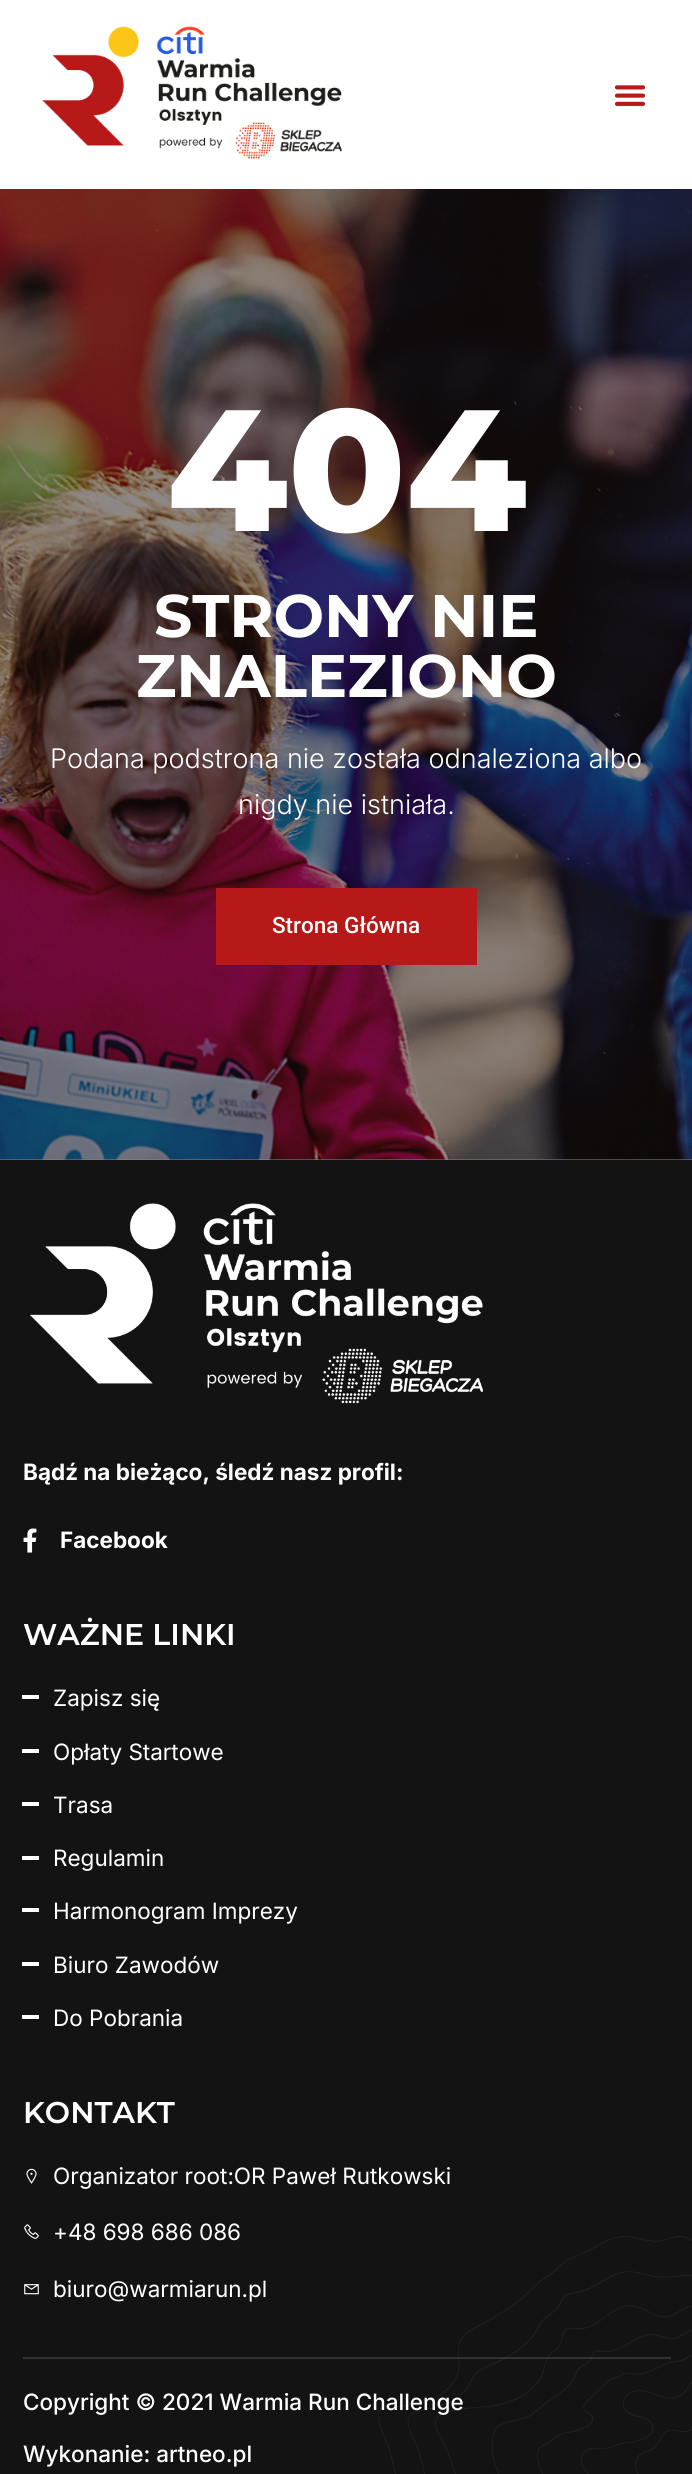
#include <cairo.h>
#include <math.h>
#include <stddef.h>


static void ink(cairo_t *ctx, unsigned color) {
    cairo_set_source_rgb(ctx, (color >> 16) / 255.0, (color >> 8 & 255) / 255.0, (color & 255) / 255.0);
}

static void paste(cairo_t *ctx, const char *path, double x, double y, double w, double h) {
    cairo_surface_t *image = cairo_image_surface_create_from_png(path);
    cairo_save(ctx);
    cairo_set_source_surface(ctx, image, x, y);
    cairo_rectangle(ctx, x, y, w, h);
    cairo_fill(ctx);
    cairo_restore(ctx);
    cairo_surface_destroy(image);
}

int main(void) {
    cairo_surface_t *surface = cairo_image_surface_create(CAIRO_FORMAT_RGB24, 692, 2474);
    cairo_t *ctx = cairo_create(surface);
    cairo_font_options_t *options = cairo_font_options_create();
    cairo_font_options_set_hint_metrics(options, CAIRO_HINT_METRICS_OFF);
    cairo_font_options_set_hint_style(options, CAIRO_HINT_STYLE_NONE);
    cairo_set_font_options(ctx, options);
    cairo_set_miter_limit(ctx, 4);
    ink(ctx, 0xFFFFFF);
    cairo_paint(ctx);
    ink(ctx, 0x8E8888);
    cairo_rectangle(ctx, 0, 1159, 692, 1);
    cairo_fill(ctx);
    paste(ctx, "media/1.png", 42, 26, 300, 133);
    paste(ctx, "media/2.png", 614, 85, 32, 21);
    paste(ctx, "media/3.png", 0, 189, 692, 971);
    cairo_select_font_face(ctx, "Montserrat ExtraBold", CAIRO_FONT_SLANT_NORMAL, CAIRO_FONT_WEIGHT_NORMAL);
    cairo_set_font_size(ctx, 172.5);
    ink(ctx, 0xFFFFFF);
    cairo_move_to(ctx, 167, 531);
    cairo_show_text(ctx, "404");
    cairo_select_font_face(ctx, "Montserrat", CAIRO_FONT_SLANT_NORMAL, CAIRO_FONT_WEIGHT_BOLD);
    cairo_set_font_size(ctx, 60);
    cairo_move_to(ctx, 154, 637);
    cairo_show_text(ctx, "STRONY NIE");
    cairo_move_to(ctx, 136, 697);
    cairo_show_text(ctx, "ZNALEZIONO");
    cairo_select_font_face(ctx, "Inter Light", CAIRO_FONT_SLANT_NORMAL, CAIRO_FONT_WEIGHT_NORMAL);
    cairo_set_font_size(ctx, 27);
    cairo_move_to(ctx, 50, 768);
    cairo_show_text(ctx, "Podana podstrona nie została odnaleziona albo");
    cairo_move_to(ctx, 238, 814);
    cairo_show_text(ctx, "nigdy nie istniała.");
    ink(ctx, 0xB61918);
    cairo_rectangle(ctx, 216, 888, 261, 77);
    cairo_fill(ctx);
    cairo_select_font_face(ctx, "Roboto Medium", CAIRO_FONT_SLANT_NORMAL, CAIRO_FONT_WEIGHT_NORMAL);
    cairo_set_font_size(ctx, 22.5);
    ink(ctx, 0xFFFFFF);
    cairo_move_to(ctx, 272, 933);
    cairo_show_text(ctx, "Strona Główna");
    ink(ctx, 0x131313);
    cairo_rectangle(ctx, 0, 1160, 692, 1314);
    cairo_fill(ctx);
    paste(ctx, "media/4.png", 30, 1203, 453, 201);
    cairo_select_font_face(ctx, "Inter", CAIRO_FONT_SLANT_NORMAL, CAIRO_FONT_WEIGHT_BOLD);
    ink(ctx, 0xFFFFFF);
    cairo_move_to(ctx, 23, 1480);
    cairo_show_text(ctx, "Bądź na bieżąco, śledź nasz profil:");
    paste(ctx, "media/5.png", 23, 1528, 14, 25);
    cairo_move_to(ctx, 60, 1548);
    cairo_show_text(ctx, "Facebook");
    cairo_select_font_face(ctx, "Montserrat SemiBold", CAIRO_FONT_SLANT_NORMAL, CAIRO_FONT_WEIGHT_NORMAL);
    cairo_set_font_size(ctx, 30);
    cairo_move_to(ctx, 23, 1645);
    cairo_show_text(ctx, "WAŻNE LINKI");
    cairo_rectangle(ctx, 22, 1695, 17, 4);
    cairo_fill(ctx);
    cairo_select_font_face(ctx, "Inter", CAIRO_FONT_SLANT_NORMAL, CAIRO_FONT_WEIGHT_NORMAL);
    cairo_set_font_size(ctx, 22.5);
    cairo_move_to(ctx, 53, 1706);
    cairo_show_text(ctx, "Zapisz się");
    cairo_rectangle(ctx, 22, 1749, 17, 4);
    cairo_fill(ctx);
    cairo_move_to(ctx, 53, 1760);
    cairo_show_text(ctx, "Opłaty Startowe");
    cairo_rectangle(ctx, 22, 1802, 17, 4);
    cairo_fill(ctx);
    cairo_move_to(ctx, 53, 1813);
    cairo_show_text(ctx, "Trasa");
    cairo_rectangle(ctx, 22, 1856, 17, 4);
    cairo_fill(ctx);
    cairo_move_to(ctx, 53, 1866);
    cairo_show_text(ctx, "Regulamin");
    cairo_rectangle(ctx, 22, 1908, 17, 4);
    cairo_fill(ctx);
    cairo_move_to(ctx, 53, 1919);
    cairo_show_text(ctx, "Harmonogram Imprezy");
    cairo_rectangle(ctx, 22, 1962, 17, 4);
    cairo_fill(ctx);
    cairo_move_to(ctx, 53, 1973);
    cairo_show_text(ctx, "Biuro Zawodów");
    cairo_rectangle(ctx, 22, 2015, 17, 4);
    cairo_fill(ctx);
    cairo_move_to(ctx, 53, 2026);
    cairo_show_text(ctx, "Do Pobrania");
    cairo_select_font_face(ctx, "Montserrat SemiBold", CAIRO_FONT_SLANT_NORMAL, CAIRO_FONT_WEIGHT_NORMAL);
    cairo_set_font_size(ctx, 30);
    cairo_move_to(ctx, 23, 2123);
    cairo_show_text(ctx, "KONTAKT");
    paste(ctx, "media/6.png", 26, 2168, 11, 16);
    cairo_select_font_face(ctx, "Inter", CAIRO_FONT_SLANT_NORMAL, CAIRO_FONT_WEIGHT_NORMAL);
    cairo_set_font_size(ctx, 22.5);
    cairo_move_to(ctx, 53, 2184);
    cairo_show_text(ctx, "Organizator root:OR Paweł Rutkowski");
    paste(ctx, "media/7.png", 24, 2224, 15, 15);
    cairo_move_to(ctx, 53, 2240);
    cairo_show_text(ctx, "+48 698 686 086");
    paste(ctx, "media/8.png", 24, 2284, 15, 11);
    cairo_move_to(ctx, 53, 2297);
    cairo_show_text(ctx, "biuro@warmiarun.pl");
    paste(ctx, "media/9.png", 378, 2236, 314, 238);
    cairo_set_source_rgba(ctx, 1, 1, 1, 0.13);
    cairo_rectangle(ctx, 23, 2357, 648, 2);
    cairo_fill(ctx);
    cairo_select_font_face(ctx, "Inter Medium", CAIRO_FONT_SLANT_NORMAL, CAIRO_FONT_WEIGHT_NORMAL);
    ink(ctx, 0xFFFFFF);
    cairo_move_to(ctx, 23, 2410);
    cairo_show_text(ctx, "Copyright © 2021 Warmia Run Challenge");
    cairo_move_to(ctx, 23, 2462);
    cairo_show_text(ctx, "Wykonanie: artneo.pl");
    cairo_surface_write_to_png(surface, "image.png");
    cairo_font_options_destroy(options);
    cairo_destroy(ctx);
    cairo_surface_destroy(surface);
    return 0;
}
